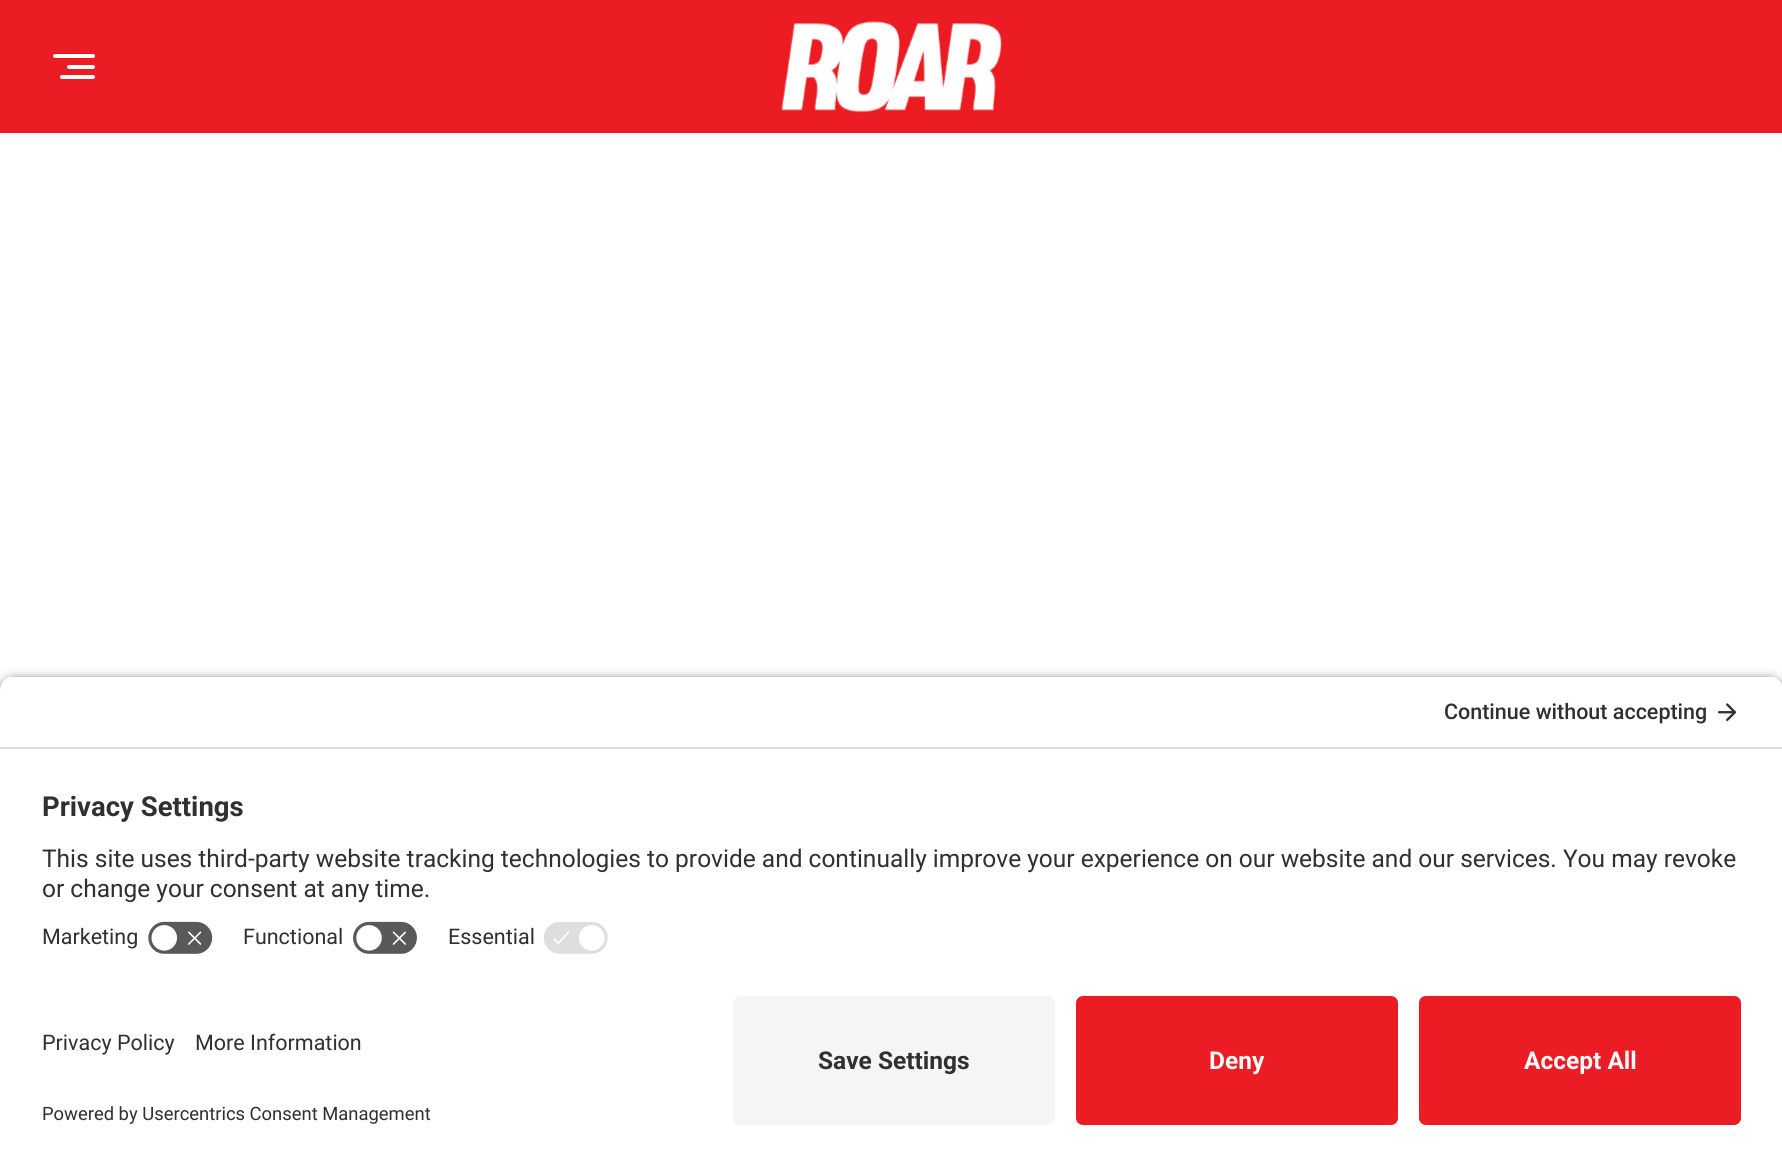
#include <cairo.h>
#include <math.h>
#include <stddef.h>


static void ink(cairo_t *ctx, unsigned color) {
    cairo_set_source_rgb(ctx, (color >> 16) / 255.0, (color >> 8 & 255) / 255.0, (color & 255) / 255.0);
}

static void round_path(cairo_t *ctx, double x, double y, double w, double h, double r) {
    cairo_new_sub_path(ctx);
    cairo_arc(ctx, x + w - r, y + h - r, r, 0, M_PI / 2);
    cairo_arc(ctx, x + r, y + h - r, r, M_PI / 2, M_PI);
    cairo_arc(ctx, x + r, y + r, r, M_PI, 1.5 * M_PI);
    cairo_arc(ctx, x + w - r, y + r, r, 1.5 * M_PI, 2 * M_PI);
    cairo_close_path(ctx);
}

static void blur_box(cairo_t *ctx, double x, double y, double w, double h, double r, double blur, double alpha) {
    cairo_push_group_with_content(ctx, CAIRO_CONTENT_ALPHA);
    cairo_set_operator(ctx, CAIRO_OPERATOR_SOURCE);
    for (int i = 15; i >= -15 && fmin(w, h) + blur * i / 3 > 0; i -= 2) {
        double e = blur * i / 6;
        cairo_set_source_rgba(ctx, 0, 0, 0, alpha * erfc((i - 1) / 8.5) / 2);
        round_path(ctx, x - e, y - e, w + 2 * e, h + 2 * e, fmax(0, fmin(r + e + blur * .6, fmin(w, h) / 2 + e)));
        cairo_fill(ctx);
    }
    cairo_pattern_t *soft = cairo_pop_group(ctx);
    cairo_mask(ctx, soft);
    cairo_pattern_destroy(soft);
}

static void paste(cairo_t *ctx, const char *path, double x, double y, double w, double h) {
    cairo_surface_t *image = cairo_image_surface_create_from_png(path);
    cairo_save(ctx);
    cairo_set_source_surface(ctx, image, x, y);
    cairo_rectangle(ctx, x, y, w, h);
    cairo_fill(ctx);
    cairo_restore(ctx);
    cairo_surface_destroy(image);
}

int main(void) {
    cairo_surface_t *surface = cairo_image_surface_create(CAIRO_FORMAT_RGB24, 1782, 1167);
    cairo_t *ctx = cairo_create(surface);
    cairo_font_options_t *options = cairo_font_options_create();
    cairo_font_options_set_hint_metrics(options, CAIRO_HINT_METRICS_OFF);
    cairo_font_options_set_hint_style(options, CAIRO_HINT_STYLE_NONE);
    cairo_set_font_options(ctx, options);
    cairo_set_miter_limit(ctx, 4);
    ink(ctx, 0xFFFFFF);
    cairo_paint(ctx);
    ink(ctx, 0xEC1C25);
    cairo_rectangle(ctx, 0, 0, 1782, 133);
    cairo_fill(ctx);
    ink(ctx, 0xFFFFFF);
    round_path(ctx, 53, 54, 42, 4, 2);
    cairo_fill(ctx);
    round_path(ctx, 67, 65, 28, 4, 2);
    cairo_fill(ctx);
    round_path(ctx, 60, 75, 35, 4, 2);
    cairo_fill(ctx);
    paste(ctx, "media/1.png", 781, 21, 222, 92);
    ink(ctx, 0x000000);
    blur_box(ctx, 0, 681, 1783, 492, 14, 6, 0.8);
    cairo_save(ctx);
    cairo_new_path(ctx);
    cairo_move_to(ctx, 14, 676);
    cairo_line_to(ctx, 1769, 676);
    cairo_curve_to(ctx, 1776.5, 676, 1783, 682.5, 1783, 690);
    cairo_line_to(ctx, 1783, 982);
    cairo_line_to(ctx, 0, 982);
    cairo_line_to(ctx, 0, 690);
    cairo_curve_to(ctx, 0, 682.5, 6.5, 676, 14, 676);
    cairo_close_path(ctx);
    cairo_clip(ctx);
    ink(ctx, 0xFFFFFF);
    cairo_rectangle(ctx, 0, 677, 1782, 70);
    cairo_fill(ctx);
    cairo_restore(ctx);
    ink(ctx, 0xDEDEDE);
    cairo_rectangle(ctx, 0, 747, 1782, 2);
    cairo_fill(ctx);
    cairo_select_font_face(ctx, "Roboto Medium", CAIRO_FONT_SLANT_NORMAL, CAIRO_FONT_WEIGHT_NORMAL);
    cairo_set_font_size(ctx, 21.5);
    ink(ctx, 0x303030);
    cairo_move_to(ctx, 1444, 719);
    cairo_show_text(ctx, "Continue without accepting");
    paste(ctx, "media/2.png", 1717, 703, 20, 19);
    ink(ctx, 0xFFFFFF);
    cairo_rectangle(ctx, 0, 749, 1782, 418);
    cairo_fill(ctx);
    cairo_select_font_face(ctx, "Roboto", CAIRO_FONT_SLANT_NORMAL, CAIRO_FONT_WEIGHT_BOLD);
    cairo_set_font_size(ctx, 27.5);
    ink(ctx, 0x303030);
    cairo_move_to(ctx, 42, 816);
    cairo_show_text(ctx, "Privacy Settings");
    cairo_select_font_face(ctx, "Roboto", CAIRO_FONT_SLANT_NORMAL, CAIRO_FONT_WEIGHT_NORMAL);
    cairo_set_font_size(ctx, 24.5);
    cairo_move_to(ctx, 42, 867);
    cairo_show_text(ctx, "This site uses third-party website tracking technologies to provide and continually improve your experience on our website and our services. You may revoke");
    cairo_move_to(ctx, 42, 897);
    cairo_show_text(ctx, "or change your consent at any time.");
    cairo_set_font_size(ctx, 21.5);
    cairo_move_to(ctx, 42, 944);
    cairo_show_text(ctx, "Marketing");
    paste(ctx, "media/3.png", 148, 921, 65, 33);
    cairo_move_to(ctx, 243, 944);
    cairo_show_text(ctx, "Functional");
    paste(ctx, "media/4.png", 353, 921, 64, 33);
    cairo_move_to(ctx, 448, 944);
    cairo_show_text(ctx, "Essential");
    paste(ctx, "media/5.png", 543, 922, 65, 32);
    cairo_move_to(ctx, 42, 1050);
    cairo_show_text(ctx, "Privacy Policy");
    cairo_move_to(ctx, 195, 1050);
    cairo_show_text(ctx, "More Information");
    cairo_set_font_size(ctx, 18.4);
    cairo_move_to(ctx, 42, 1120);
    cairo_show_text(ctx, "Powered by Usercentrics Consent Management");
    ink(ctx, 0xF5F5F5);
    round_path(ctx, 733, 996, 322, 129, 7);
    cairo_fill(ctx);
    cairo_select_font_face(ctx, "Roboto", CAIRO_FONT_SLANT_NORMAL, CAIRO_FONT_WEIGHT_BOLD);
    cairo_set_font_size(ctx, 24.5);
    ink(ctx, 0x303030);
    cairo_move_to(ctx, 818, 1069);
    cairo_show_text(ctx, "Save Settings");
    ink(ctx, 0xEC1C25);
    round_path(ctx, 1076, 996, 322, 129, 7);
    cairo_fill(ctx);
    ink(ctx, 0xFAFAFA);
    cairo_move_to(ctx, 1209, 1069);
    cairo_show_text(ctx, "Deny");
    ink(ctx, 0xEC1C25);
    round_path(ctx, 1419, 996, 322, 129, 7);
    cairo_fill(ctx);
    ink(ctx, 0xFAFAFA);
    cairo_move_to(ctx, 1524, 1069);
    cairo_show_text(ctx, "Accept All");
    cairo_surface_write_to_png(surface, "image.png");
    cairo_font_options_destroy(options);
    cairo_destroy(ctx);
    cairo_surface_destroy(surface);
    return 0;
}
